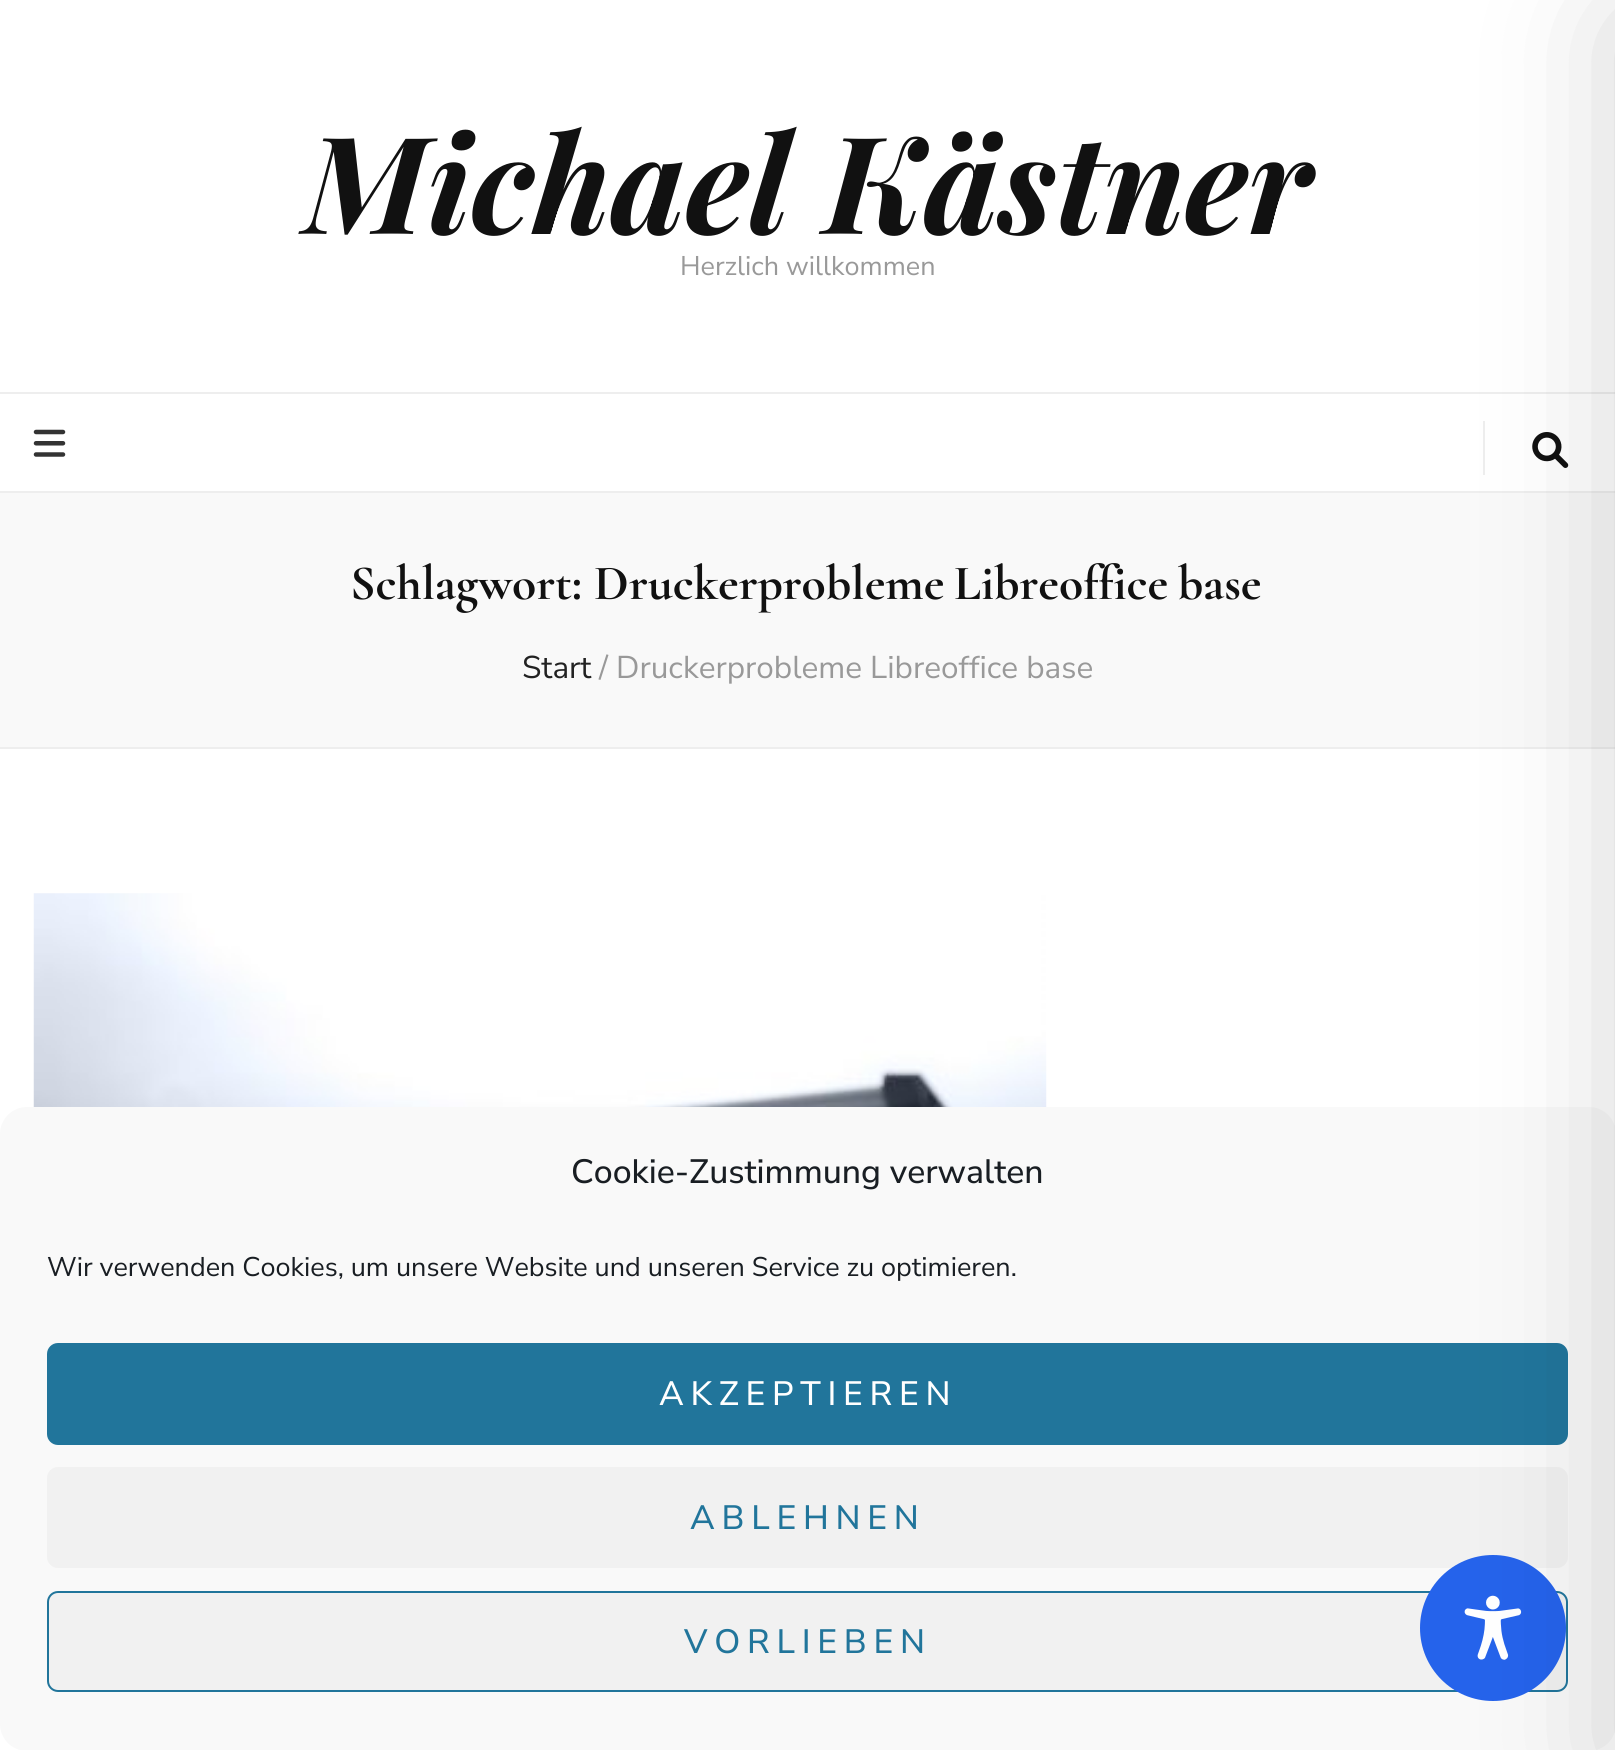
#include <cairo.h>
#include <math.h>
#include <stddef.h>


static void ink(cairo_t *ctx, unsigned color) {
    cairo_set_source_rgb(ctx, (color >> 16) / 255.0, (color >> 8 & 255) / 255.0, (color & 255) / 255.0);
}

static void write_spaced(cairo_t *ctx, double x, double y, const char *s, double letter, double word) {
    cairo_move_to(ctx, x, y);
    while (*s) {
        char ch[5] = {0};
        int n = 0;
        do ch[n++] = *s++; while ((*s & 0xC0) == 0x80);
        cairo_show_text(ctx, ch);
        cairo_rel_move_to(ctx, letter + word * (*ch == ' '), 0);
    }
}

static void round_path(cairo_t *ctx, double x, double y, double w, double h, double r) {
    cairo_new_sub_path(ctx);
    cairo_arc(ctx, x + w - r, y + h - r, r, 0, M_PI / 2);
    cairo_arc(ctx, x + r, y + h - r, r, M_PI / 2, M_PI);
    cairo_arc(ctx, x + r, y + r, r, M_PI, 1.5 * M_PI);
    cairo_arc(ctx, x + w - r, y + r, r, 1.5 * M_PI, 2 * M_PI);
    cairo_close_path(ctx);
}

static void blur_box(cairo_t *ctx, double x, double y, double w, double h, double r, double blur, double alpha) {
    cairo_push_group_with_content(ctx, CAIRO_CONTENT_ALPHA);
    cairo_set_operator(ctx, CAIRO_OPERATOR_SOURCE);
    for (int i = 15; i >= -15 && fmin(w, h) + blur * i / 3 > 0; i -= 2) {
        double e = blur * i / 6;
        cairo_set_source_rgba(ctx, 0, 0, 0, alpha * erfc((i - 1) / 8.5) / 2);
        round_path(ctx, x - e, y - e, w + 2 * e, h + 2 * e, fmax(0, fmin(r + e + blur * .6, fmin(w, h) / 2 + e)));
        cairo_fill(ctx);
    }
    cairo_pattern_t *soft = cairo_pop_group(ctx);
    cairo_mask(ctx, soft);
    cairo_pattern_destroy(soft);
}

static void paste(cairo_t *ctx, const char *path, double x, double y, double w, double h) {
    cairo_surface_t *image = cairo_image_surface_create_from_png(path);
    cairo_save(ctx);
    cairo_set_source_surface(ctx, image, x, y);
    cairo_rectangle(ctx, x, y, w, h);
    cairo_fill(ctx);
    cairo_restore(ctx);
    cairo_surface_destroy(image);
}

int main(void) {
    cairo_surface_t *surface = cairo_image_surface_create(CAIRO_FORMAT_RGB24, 1615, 1750);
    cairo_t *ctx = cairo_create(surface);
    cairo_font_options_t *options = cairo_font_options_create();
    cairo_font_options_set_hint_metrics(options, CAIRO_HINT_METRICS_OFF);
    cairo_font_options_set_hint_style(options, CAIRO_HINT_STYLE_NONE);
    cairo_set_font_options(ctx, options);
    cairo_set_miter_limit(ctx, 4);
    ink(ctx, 0xFFFFFF);
    cairo_paint(ctx);
    cairo_select_font_face(ctx, "Playfair Display", CAIRO_FONT_SLANT_ITALIC, CAIRO_FONT_WEIGHT_BOLD);
    cairo_set_font_size(ctx, 135);
    ink(ctx, 0x111111);
    cairo_move_to(ctx, 304, 234);
    cairo_show_text(ctx, "Michael Kästner");
    cairo_select_font_face(ctx, "Nunito Sans", CAIRO_FONT_SLANT_NORMAL, CAIRO_FONT_WEIGHT_NORMAL);
    cairo_set_font_size(ctx, 27);
    ink(ctx, 0x999999);
    cairo_move_to(ctx, 680, 275);
    cairo_show_text(ctx, "Herzlich willkommen");
    ink(ctx, 0xEEEEEE);
    cairo_rectangle(ctx, 0, 392, 1615, 2);
    cairo_fill(ctx);
    cairo_rectangle(ctx, 0, 491, 1615, 2);
    cairo_fill(ctx);
    paste(ctx, "media/1.png", 33, 429, 33, 28);
    cairo_rectangle(ctx, 1483, 421, 2, 54);
    cairo_fill(ctx);
    paste(ctx, "media/2.png", 1532, 432, 37, 36);
    ink(ctx, 0xF9F9F9);
    cairo_rectangle(ctx, 0, 493, 1615, 254);
    cairo_fill(ctx);
    ink(ctx, 0xEEEEEE);
    cairo_rectangle(ctx, 0, 747, 1615, 2);
    cairo_fill(ctx);
    cairo_select_font_face(ctx, "Cormorant", CAIRO_FONT_SLANT_NORMAL, CAIRO_FONT_WEIGHT_BOLD);
    cairo_set_font_size(ctx, 49.5);
    ink(ctx, 0x111111);
    cairo_move_to(ctx, 350, 599);
    cairo_show_text(ctx, "Schlagwort:");
    write_spaced(ctx, 594, 599, "Druckerprobleme Libreoffice base", 0, -2);
    cairo_select_font_face(ctx, "Nunito Sans", CAIRO_FONT_SLANT_NORMAL, CAIRO_FONT_WEIGHT_NORMAL);
    cairo_set_font_size(ctx, 31.5);
    ink(ctx, 0x222222);
    cairo_move_to(ctx, 522, 678);
    cairo_show_text(ctx, "Start");
    ink(ctx, 0x999999);
    cairo_move_to(ctx, 599, 678);
    cairo_show_text(ctx, "/ Druckerprobleme Libreoffice base");
    paste(ctx, "media/3.png", 33, 893, 1014, 214);
    ink(ctx, 0xF9F9F9);
    round_path(ctx, 0, 1107, 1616, 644, 27);
    cairo_fill(ctx);
    ink(ctx, 0x21759B);
    round_path(ctx, 48, 1344, 1519, 100, 10);
    cairo_fill_preserve(ctx);
    cairo_stroke(ctx);
    ink(ctx, 0xF1F1F1);
    round_path(ctx, 47, 1467, 1521, 101, 11);
    cairo_fill(ctx);
    round_path(ctx, 48, 1592, 1519, 99, 10);
    cairo_fill_preserve(ctx);
    ink(ctx, 0x21759B);
    cairo_stroke(ctx);
    ink(ctx, 0x2563EB);
    cairo_arc(ctx, 1493, 1628, 73, 0, 2 * M_PI);
    cairo_fill(ctx);
    paste(ctx, "media/4.png", 1464, 1595, 58, 65);
    ink(ctx, 0x000000);
    blur_box(ctx, 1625, 23, 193, 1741, 0, 67.5, 0.2);
    cairo_select_font_face(ctx, "Nunito Sans Medium", CAIRO_FONT_SLANT_NORMAL, CAIRO_FONT_WEIGHT_NORMAL);
    cairo_set_font_size(ctx, 33.75);
    ink(ctx, 0x191E23);
    cairo_move_to(ctx, 571, 1183);
    cairo_show_text(ctx, "Cookie-Zustimmung verwalten");
    cairo_select_font_face(ctx, "Nunito Sans", CAIRO_FONT_SLANT_NORMAL, CAIRO_FONT_WEIGHT_NORMAL);
    cairo_set_font_size(ctx, 27);
    cairo_move_to(ctx, 47, 1276);
    cairo_show_text(ctx, "Wir verwenden Cookies, um unsere Website und unseren Service zu optimieren.");
    cairo_select_font_face(ctx, "Nunito Sans Medium", CAIRO_FONT_SLANT_NORMAL, CAIRO_FONT_WEIGHT_NORMAL);
    cairo_set_font_size(ctx, 33.75);
    ink(ctx, 0xFFFFFF);
    write_spaced(ctx, 659, 1405, "AKZEPTIEREN", 6.75, 0);
    ink(ctx, 0x21759B);
    write_spaced(ctx, 690, 1529, "ABLEHNEN", 6.75, 0);
    write_spaced(ctx, 684, 1653, "VORLIEBEN", 6.75, 0);
    cairo_surface_write_to_png(surface, "image.png");
    cairo_font_options_destroy(options);
    cairo_destroy(ctx);
    cairo_surface_destroy(surface);
    return 0;
}
